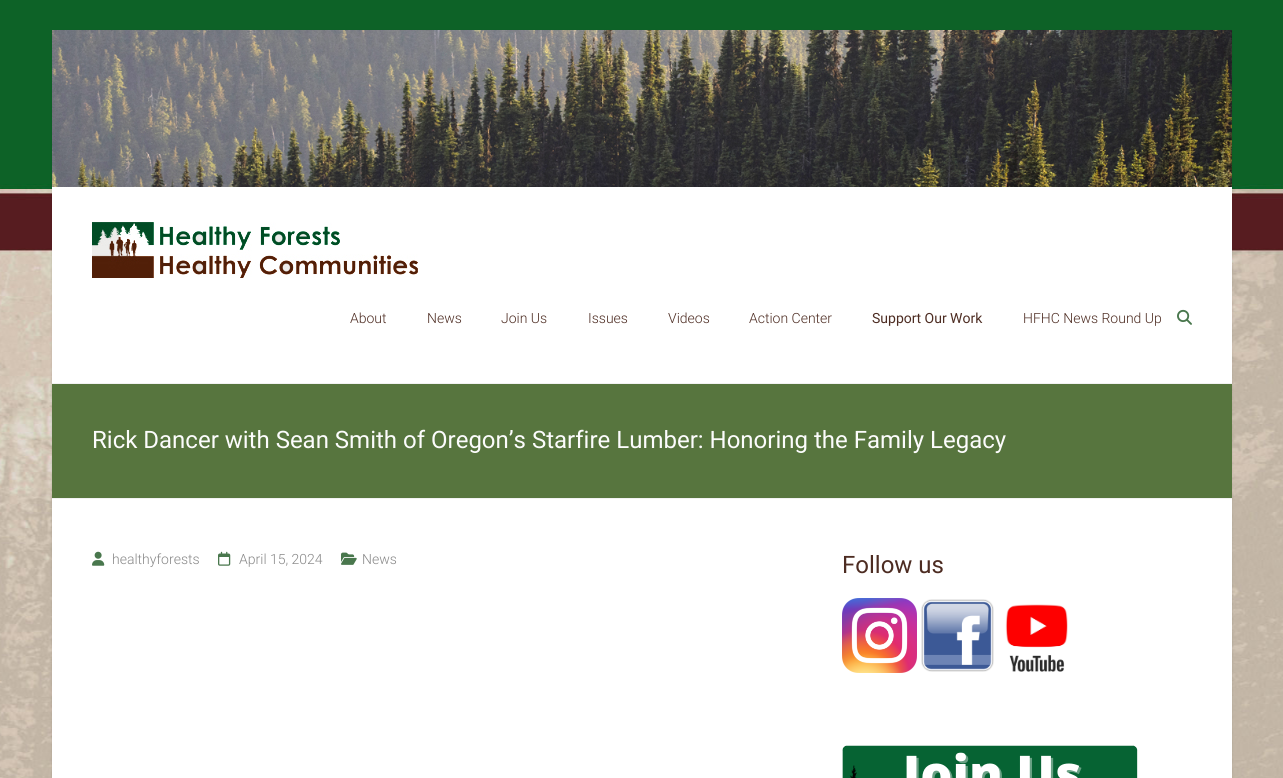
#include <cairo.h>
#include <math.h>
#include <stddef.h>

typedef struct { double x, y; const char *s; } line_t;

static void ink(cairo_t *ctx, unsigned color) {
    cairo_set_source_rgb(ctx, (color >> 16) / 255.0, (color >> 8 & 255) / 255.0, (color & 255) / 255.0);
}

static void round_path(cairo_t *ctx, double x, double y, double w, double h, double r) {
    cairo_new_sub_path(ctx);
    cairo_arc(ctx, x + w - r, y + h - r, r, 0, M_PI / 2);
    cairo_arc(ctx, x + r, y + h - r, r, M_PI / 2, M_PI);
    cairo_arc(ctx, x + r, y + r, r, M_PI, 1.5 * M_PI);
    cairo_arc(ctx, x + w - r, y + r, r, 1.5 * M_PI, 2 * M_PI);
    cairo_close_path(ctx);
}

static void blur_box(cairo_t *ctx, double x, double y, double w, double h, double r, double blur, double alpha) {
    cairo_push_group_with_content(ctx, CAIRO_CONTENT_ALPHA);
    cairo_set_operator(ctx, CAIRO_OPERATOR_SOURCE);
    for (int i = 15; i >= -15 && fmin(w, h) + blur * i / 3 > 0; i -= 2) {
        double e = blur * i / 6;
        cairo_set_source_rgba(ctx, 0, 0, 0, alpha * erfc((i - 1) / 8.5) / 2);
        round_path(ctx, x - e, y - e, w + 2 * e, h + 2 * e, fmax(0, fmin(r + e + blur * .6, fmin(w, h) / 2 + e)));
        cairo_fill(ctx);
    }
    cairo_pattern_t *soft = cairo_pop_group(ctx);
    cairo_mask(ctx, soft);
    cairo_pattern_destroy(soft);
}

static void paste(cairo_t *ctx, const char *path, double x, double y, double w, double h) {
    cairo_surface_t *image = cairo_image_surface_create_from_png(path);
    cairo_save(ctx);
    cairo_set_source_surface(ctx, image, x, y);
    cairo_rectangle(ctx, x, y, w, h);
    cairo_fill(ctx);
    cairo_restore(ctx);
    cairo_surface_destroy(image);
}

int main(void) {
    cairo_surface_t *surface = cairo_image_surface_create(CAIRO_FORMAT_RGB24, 1283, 778);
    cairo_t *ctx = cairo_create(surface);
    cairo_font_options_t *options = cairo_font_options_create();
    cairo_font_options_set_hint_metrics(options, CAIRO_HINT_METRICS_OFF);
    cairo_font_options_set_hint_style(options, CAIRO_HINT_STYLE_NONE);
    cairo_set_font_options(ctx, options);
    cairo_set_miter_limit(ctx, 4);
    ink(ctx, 0xFFFFFF);
    cairo_paint(ctx);
    paste(ctx, "media/1.png", 0, 0, 1283, 778);
    ink(ctx, 0x000000);
    blur_box(ctx, 52, 31, 1180, 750, 0, 1, 0.1);
    ink(ctx, 0xFFFFFF);
    cairo_rectangle(ctx, 52, 187, 1180, 591);
    cairo_fill(ctx);
    ink(ctx, 0xF2F2F2);
    cairo_rectangle(ctx, 52, 383, 1180, 1);
    cairo_fill(ctx);
    paste(ctx, "media/2.png", 52, 30, 1180, 157);
    paste(ctx, "media/3.png", 92, 222, 326, 56);
    cairo_select_font_face(ctx, "Roboto Light", CAIRO_FONT_SLANT_NORMAL, CAIRO_FONT_WEIGHT_NORMAL);
    cairo_set_font_size(ctx, 14);
    ink(ctx, 0x4D2C22);
    {
        static const line_t items[] = {
            {350, 323, "About"},
            {427, 323, "News"},
            {501, 323, "Join Us"},
            {588, 323, "Issues"},
            {668, 323, "Videos"},
            {749, 323, "Action Center"},
        };
        for (size_t i = 0; i < sizeof items / sizeof *items; i++) {
            cairo_move_to(ctx, items[i].x, items[i].y);
            cairo_show_text(ctx, items[i].s);
        }
    }
    cairo_select_font_face(ctx, "Roboto", CAIRO_FONT_SLANT_NORMAL, CAIRO_FONT_WEIGHT_NORMAL);
    cairo_move_to(ctx, 872, 323);
    cairo_show_text(ctx, "Support Our Work");
    cairo_select_font_face(ctx, "Roboto Light", CAIRO_FONT_SLANT_NORMAL, CAIRO_FONT_WEIGHT_NORMAL);
    cairo_move_to(ctx, 1023, 323);
    cairo_show_text(ctx, "HFHC News Round Up");
    paste(ctx, "media/4.png", 1177, 309, 15, 16);
    ink(ctx, 0x57753E);
    cairo_rectangle(ctx, 52, 384, 1180, 114);
    cairo_fill(ctx);
    ink(ctx, 0xF2F2F2);
    cairo_rectangle(ctx, 52, 498, 1180, 1);
    cairo_fill(ctx);
    cairo_select_font_face(ctx, "Roboto", CAIRO_FONT_SLANT_NORMAL, CAIRO_FONT_WEIGHT_NORMAL);
    cairo_set_font_size(ctx, 24);
    ink(ctx, 0xFCFCFC);
    cairo_move_to(ctx, 92, 448);
    cairo_show_text(ctx, "Rick Dancer with Sean Smith of Oregon’s Starfire Lumber: Honoring the Family Legacy");
    paste(ctx, "media/5.png", 92, 551, 13, 15);
    cairo_select_font_face(ctx, "Roboto Light", CAIRO_FONT_SLANT_NORMAL, CAIRO_FONT_WEIGHT_NORMAL);
    cairo_set_font_size(ctx, 14);
    ink(ctx, 0x888888);
    cairo_move_to(ctx, 112, 564);
    cairo_show_text(ctx, "healthyforests");
    paste(ctx, "media/6.png", 218, 551, 13, 15);
    cairo_move_to(ctx, 239, 564);
    cairo_show_text(ctx, "April 15, 2024");
    paste(ctx, "media/7.png", 341, 552, 16, 13);
    cairo_move_to(ctx, 362, 564);
    cairo_show_text(ctx, "News");
    cairo_select_font_face(ctx, "Roboto", CAIRO_FONT_SLANT_NORMAL, CAIRO_FONT_WEIGHT_NORMAL);
    cairo_set_font_size(ctx, 24);
    ink(ctx, 0x4D2C22);
    cairo_move_to(ctx, 842, 573);
    cairo_show_text(ctx, "Follow us");
    paste(ctx, "media/8.png", 842, 598, 75, 75);
    paste(ctx, "media/9.png", 921, 599, 73, 73);
    paste(ctx, "media/10.png", 1005, 604, 63, 68);
    paste(ctx, "media/11.png", 842, 745, 296, 33);
    cairo_surface_write_to_png(surface, "image.png");
    cairo_font_options_destroy(options);
    cairo_destroy(ctx);
    cairo_surface_destroy(surface);
    return 0;
}
